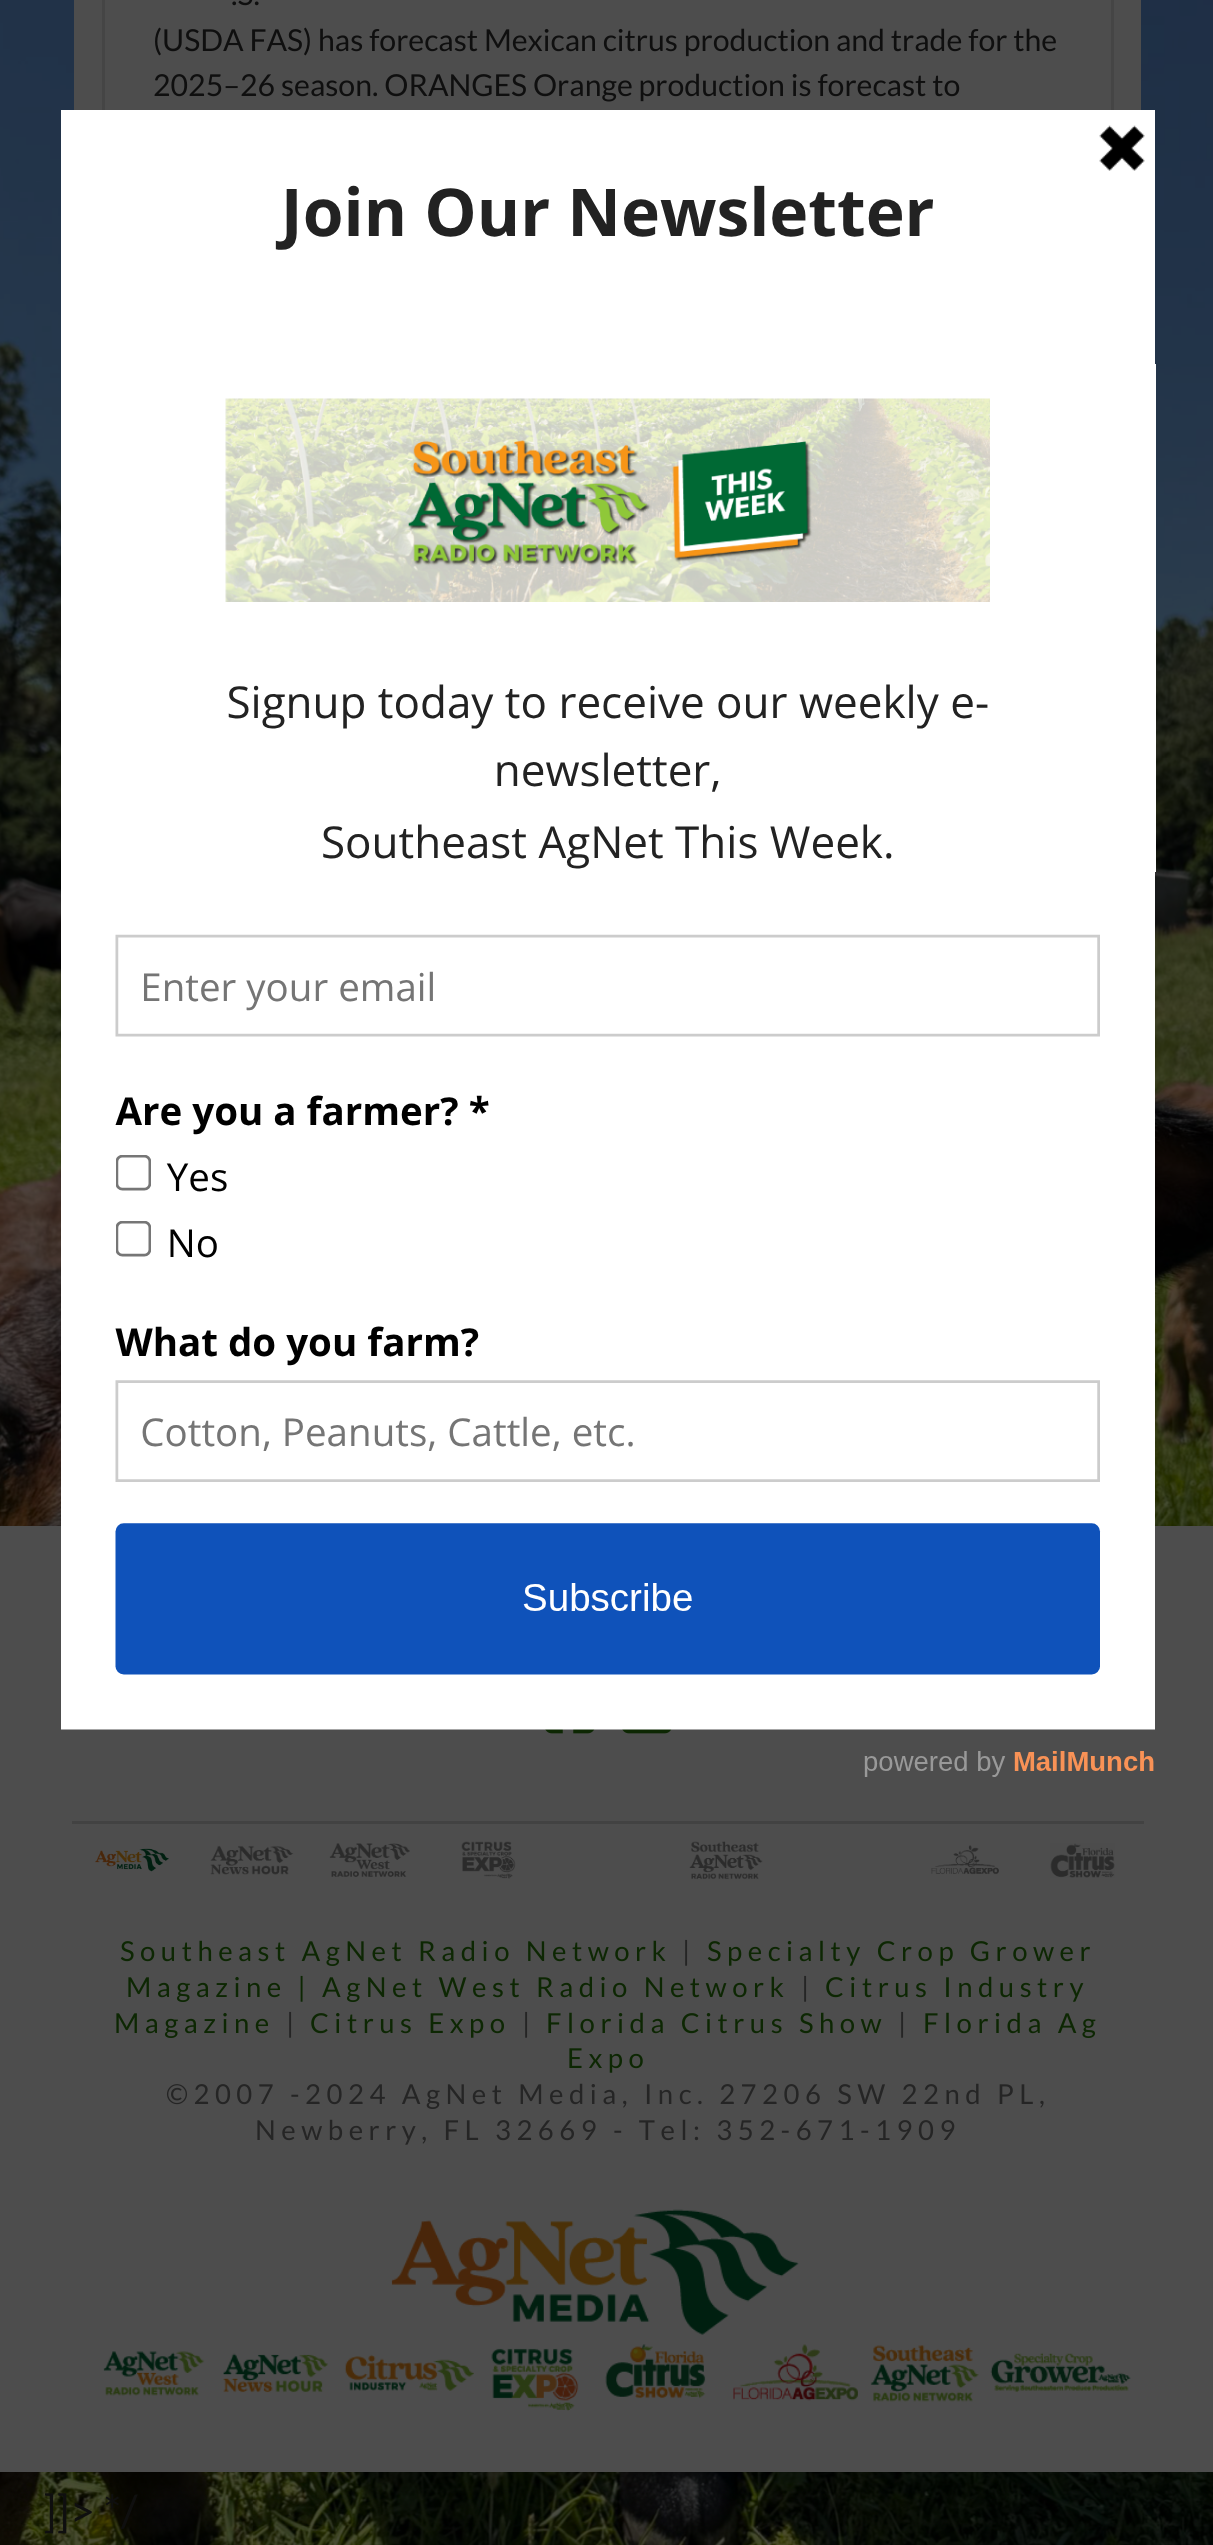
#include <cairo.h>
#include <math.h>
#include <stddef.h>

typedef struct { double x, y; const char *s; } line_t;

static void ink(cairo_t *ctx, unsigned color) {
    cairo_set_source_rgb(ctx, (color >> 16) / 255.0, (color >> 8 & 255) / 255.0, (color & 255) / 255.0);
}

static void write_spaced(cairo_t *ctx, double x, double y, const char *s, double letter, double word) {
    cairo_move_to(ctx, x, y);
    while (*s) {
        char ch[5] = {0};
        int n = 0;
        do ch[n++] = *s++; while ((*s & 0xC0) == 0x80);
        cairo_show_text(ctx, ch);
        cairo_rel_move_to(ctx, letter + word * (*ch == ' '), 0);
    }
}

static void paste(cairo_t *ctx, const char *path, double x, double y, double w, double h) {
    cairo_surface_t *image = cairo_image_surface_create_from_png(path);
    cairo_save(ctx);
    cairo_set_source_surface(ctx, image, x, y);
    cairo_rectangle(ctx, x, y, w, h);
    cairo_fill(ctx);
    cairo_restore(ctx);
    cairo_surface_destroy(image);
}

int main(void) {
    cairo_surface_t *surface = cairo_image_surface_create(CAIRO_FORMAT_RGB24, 1213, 2545);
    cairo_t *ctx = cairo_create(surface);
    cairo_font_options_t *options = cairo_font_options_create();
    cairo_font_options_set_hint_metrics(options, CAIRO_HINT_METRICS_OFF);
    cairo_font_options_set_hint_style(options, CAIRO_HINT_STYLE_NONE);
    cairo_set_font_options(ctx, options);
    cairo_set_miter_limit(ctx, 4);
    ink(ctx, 0xFFFFFF);
    cairo_paint(ctx);
    paste(ctx, "media/1.png", 0, 0, 1213, 2545);
    ink(ctx, 0x4D4D4D);
    cairo_rectangle(ctx, 74, 0, 1067, 110);
    cairo_fill(ctx);
    cairo_rectangle(ctx, 103.5, -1.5, 1009, 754);
    ink(ctx, 0x454545);
    cairo_set_line_width(ctx, 3);
    cairo_stroke(ctx);
    cairo_select_font_face(ctx, "Lato", CAIRO_FONT_SLANT_NORMAL, CAIRO_FONT_WEIGHT_NORMAL);
    cairo_set_font_size(ctx, 30.25);
    ink(ctx, 0x0F0F0F);
    {
        static const line_t items[] = {
            {231, 5, ".S."},
            {153, 51, "(USDA FAS) has forecast Mexican citrus production and trade for the"},
            {153, 96, "2025–26 season. ORANGES Orange production is forecast to"},
        };
        for (size_t i = 0; i < sizeof items / sizeof *items; i++) {
            cairo_move_to(ctx, items[i].x, items[i].y);
            cairo_show_text(ctx, items[i].s);
        }
    }
    ink(ctx, 0x4D4D4D);
    cairo_rectangle(ctx, 0, 1526, 1213, 946);
    cairo_fill(ctx);
    paste(ctx, "media/2.png", 545, 1729, 50, 5);
    paste(ctx, "media/3.png", 622, 1729, 50, 5);
    ink(ctx, 0x424242);
    cairo_rectangle(ctx, 72, 1821, 1072, 3);
    cairo_fill(ctx);
    paste(ctx, "media/4.png", 1050, 1843, 65, 35);
    paste(ctx, "media/5.png", 95, 1848, 74, 24);
    paste(ctx, "media/6.png", 210, 1845, 84, 30);
    paste(ctx, "media/7.png", 329, 1843, 81, 34);
    paste(ctx, "media/8.png", 461, 1841, 55, 38);
    paste(ctx, "media/9.png", 689, 1841, 74, 39);
    paste(ctx, "media/10.png", 931, 1845, 68, 30);
    cairo_set_font_size(ctx, 27.5);
    ink(ctx, 0x0D2703);
    write_spaced(ctx, 120, 1961, "Southeast AgNet Radio Network", 5.5, 0);
    ink(ctx, 0x252525);
    write_spaced(ctx, 682, 1961, "|", 5.5, 0);
    ink(ctx, 0x0D2703);
    write_spaced(ctx, 707, 1961, "Specialty Crop Grower", 5.5, 0);
    write_spaced(ctx, 126, 1997, "Magazine | AgNet West Radio Network", 5.5, 0);
    ink(ctx, 0x252525);
    write_spaced(ctx, 801, 1997, "|", 5.5, 0);
    ink(ctx, 0x0D2703);
    write_spaced(ctx, 825, 1997, "Citrus Industry", 5.5, 0);
    write_spaced(ctx, 114, 2033, "Magazine", 5.5, 0);
    ink(ctx, 0x252525);
    write_spaced(ctx, 286, 2033, "|", 5.5, 0);
    ink(ctx, 0x0D2703);
    write_spaced(ctx, 310, 2033, "Citrus Expo", 5.5, 0);
    ink(ctx, 0x252525);
    write_spaced(ctx, 522, 2033, "|", 5.5, 0);
    ink(ctx, 0x0D2703);
    write_spaced(ctx, 546, 2033, "Florida Citrus Show", 5.5, 0);
    ink(ctx, 0x252525);
    write_spaced(ctx, 898, 2033, "|", 5.5, 0);
    ink(ctx, 0x0D2703);
    write_spaced(ctx, 923, 2033, "Florida Ag", 5.5, 0);
    write_spaced(ctx, 567, 2068, "Expo", 5.5, 0);
    ink(ctx, 0x252525);
    write_spaced(ctx, 166, 2104, "©2007 -2024 AgNet Media, Inc. 27206 SW 22nd PL,", 5.5, 0);
    write_spaced(ctx, 255, 2140, "Newberry, FL 32669 - Tel: 352-671-1909", 5.5, 0);
    paste(ctx, "media/11.png", 103, 2209, 1028, 202);
    paste(ctx, "media/12.png", 61, 110, 1095, 1667);
    cairo_set_font_size(ctx, 44);
    ink(ctx, 0x0F0F0F);
    cairo_move_to(ctx, 43, 2527);
    cairo_show_text(ctx, "]]> */");
    cairo_surface_write_to_png(surface, "image.png");
    cairo_font_options_destroy(options);
    cairo_destroy(ctx);
    cairo_surface_destroy(surface);
    return 0;
}
